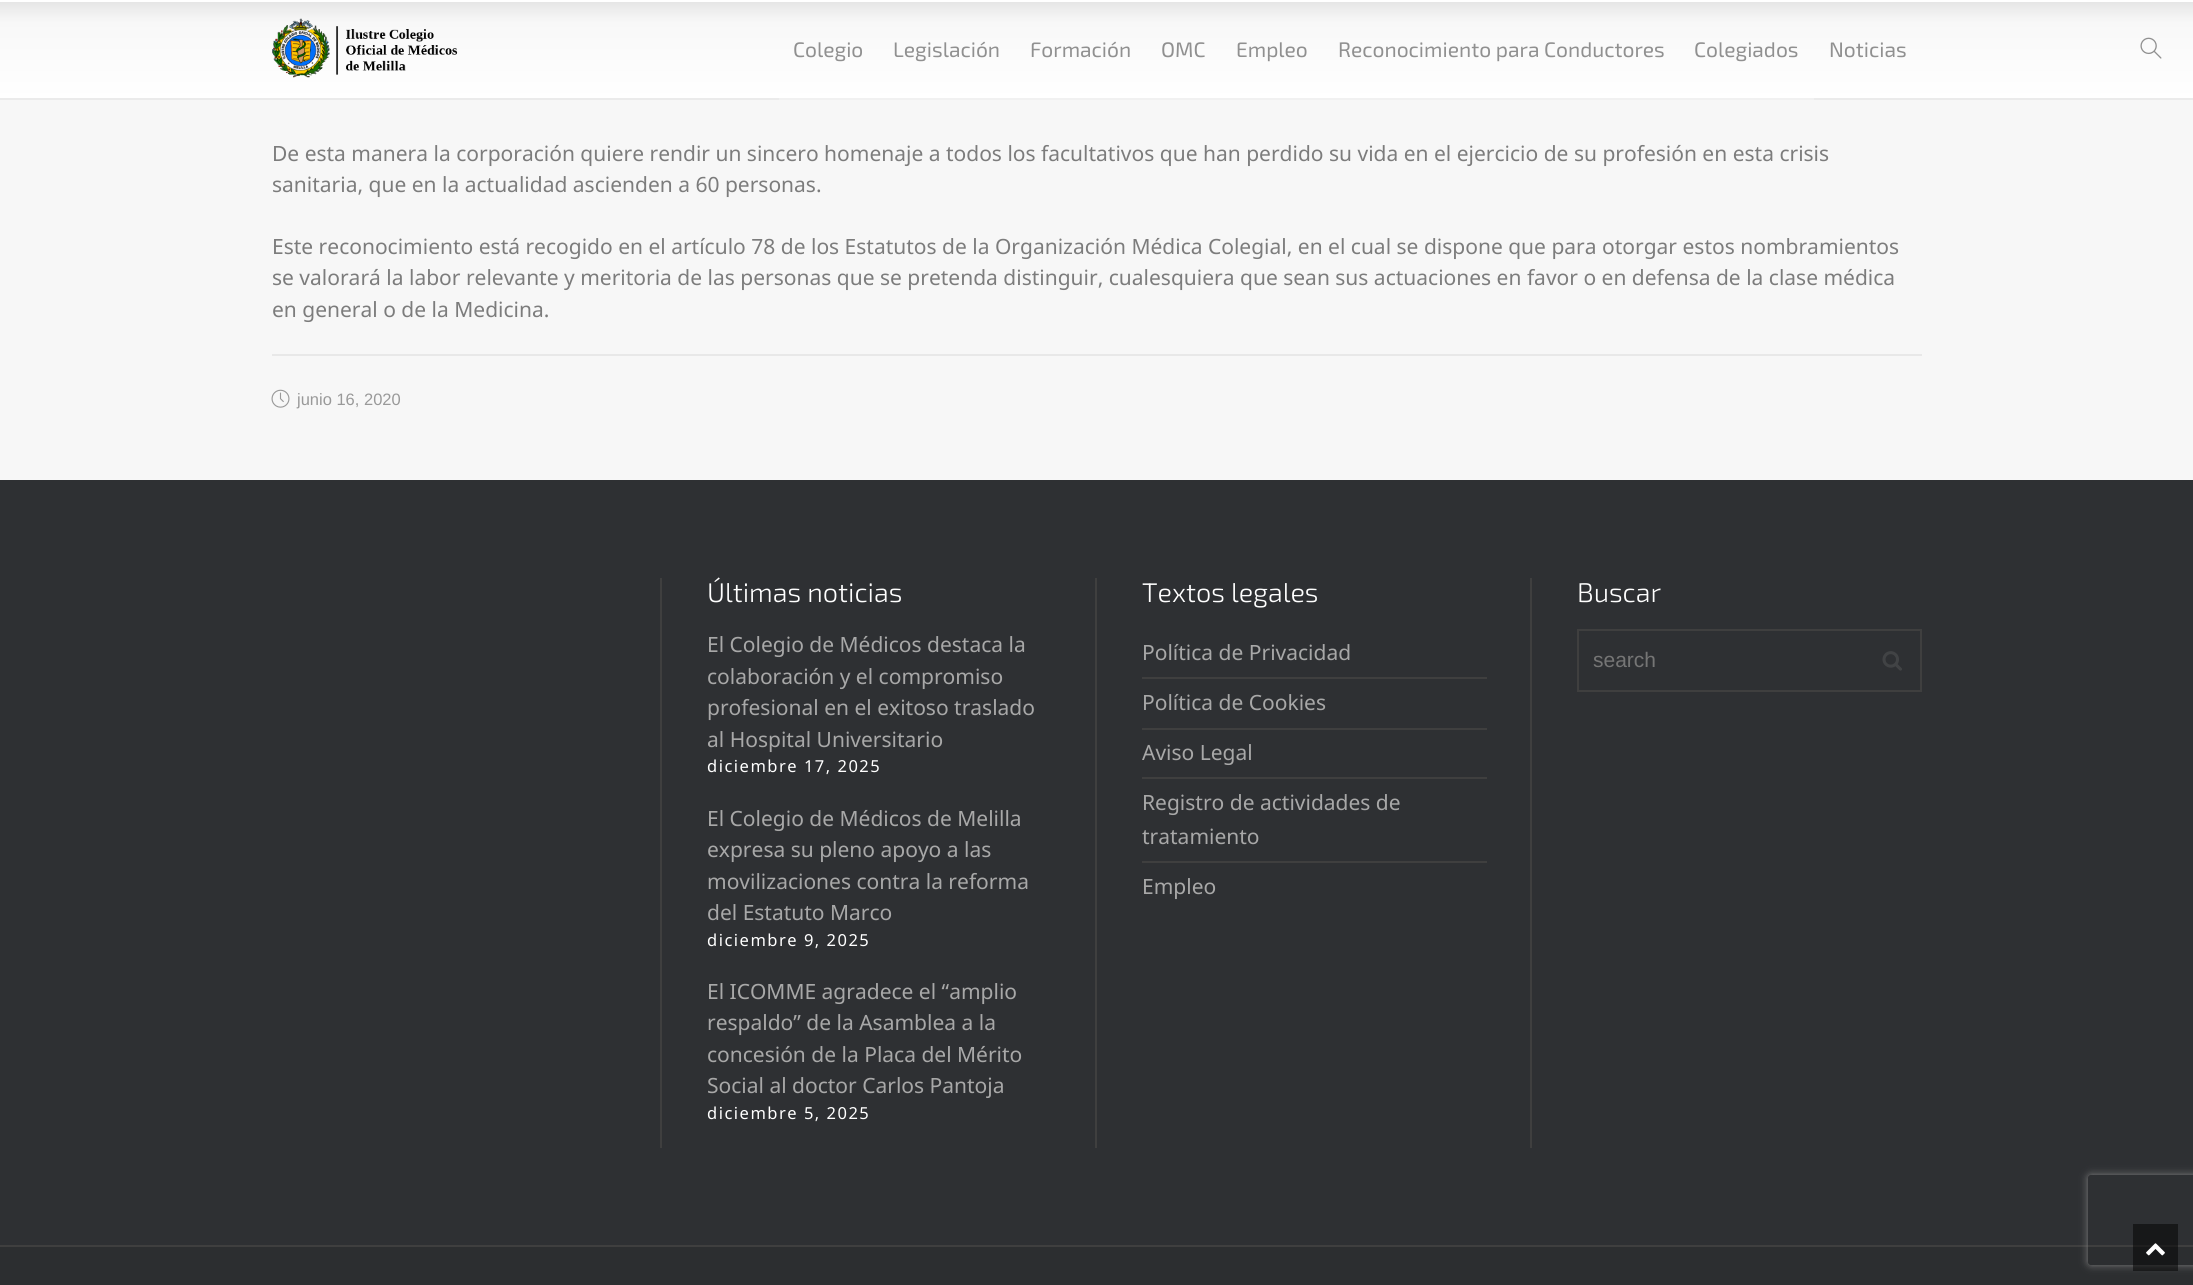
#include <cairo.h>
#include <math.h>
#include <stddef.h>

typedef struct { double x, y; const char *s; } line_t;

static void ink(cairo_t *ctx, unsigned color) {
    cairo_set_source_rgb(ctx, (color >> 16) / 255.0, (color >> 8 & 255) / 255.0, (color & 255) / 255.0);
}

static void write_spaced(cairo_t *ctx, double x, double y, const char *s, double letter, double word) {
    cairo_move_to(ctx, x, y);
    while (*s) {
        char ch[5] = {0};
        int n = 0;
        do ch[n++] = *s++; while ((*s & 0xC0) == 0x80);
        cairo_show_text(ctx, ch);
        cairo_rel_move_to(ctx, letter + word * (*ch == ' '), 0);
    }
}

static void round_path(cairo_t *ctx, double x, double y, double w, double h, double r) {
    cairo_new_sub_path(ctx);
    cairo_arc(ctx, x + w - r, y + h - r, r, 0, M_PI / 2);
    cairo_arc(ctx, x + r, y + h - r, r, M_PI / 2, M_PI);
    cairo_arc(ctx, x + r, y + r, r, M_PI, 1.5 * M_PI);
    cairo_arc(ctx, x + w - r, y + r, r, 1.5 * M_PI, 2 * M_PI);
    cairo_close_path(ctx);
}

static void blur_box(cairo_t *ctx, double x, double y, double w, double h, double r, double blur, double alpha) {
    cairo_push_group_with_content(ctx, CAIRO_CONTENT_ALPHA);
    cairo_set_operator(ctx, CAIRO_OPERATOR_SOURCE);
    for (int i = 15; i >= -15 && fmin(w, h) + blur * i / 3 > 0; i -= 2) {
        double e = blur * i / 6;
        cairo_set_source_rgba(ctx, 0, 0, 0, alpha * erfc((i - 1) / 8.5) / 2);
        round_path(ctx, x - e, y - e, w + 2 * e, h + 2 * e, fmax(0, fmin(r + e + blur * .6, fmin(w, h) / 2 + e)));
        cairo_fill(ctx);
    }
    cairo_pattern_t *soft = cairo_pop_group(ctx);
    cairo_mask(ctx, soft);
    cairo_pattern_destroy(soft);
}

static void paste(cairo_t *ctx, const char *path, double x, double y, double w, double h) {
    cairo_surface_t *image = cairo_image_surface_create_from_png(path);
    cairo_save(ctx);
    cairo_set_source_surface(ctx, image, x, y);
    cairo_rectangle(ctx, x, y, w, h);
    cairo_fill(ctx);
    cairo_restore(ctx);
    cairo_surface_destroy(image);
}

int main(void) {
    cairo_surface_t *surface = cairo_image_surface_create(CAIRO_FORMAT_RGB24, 2193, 1285);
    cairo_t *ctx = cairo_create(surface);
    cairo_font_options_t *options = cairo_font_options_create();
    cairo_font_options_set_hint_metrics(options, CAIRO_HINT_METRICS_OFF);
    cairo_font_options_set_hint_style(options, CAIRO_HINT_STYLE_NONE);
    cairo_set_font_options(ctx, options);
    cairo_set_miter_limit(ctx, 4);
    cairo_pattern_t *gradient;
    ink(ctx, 0x2E3033);
    cairo_paint(ctx);
    gradient = cairo_pattern_create_linear(1097, 0, 1097, 98);
    cairo_pattern_add_color_stop_rgba(gradient, 0.02, 1, 1, 1, 1);
    cairo_pattern_add_color_stop_rgba(gradient, 0.02, 0.902, 0.902, 0.902, 1);
    cairo_pattern_add_color_stop_rgba(gradient, 0.23, 0.973, 0.973, 0.973, 1);
    cairo_pattern_add_color_stop_rgba(gradient, 1, 1, 1, 1, 1);
    cairo_set_source(ctx, gradient);
    cairo_pattern_destroy(gradient);
    cairo_rectangle(ctx, 0, 0, 2193, 98);
    cairo_fill(ctx);
    paste(ctx, "media/1.png", 272, 18, 186, 60);
    cairo_select_font_face(ctx, "Exo 2", CAIRO_FONT_SLANT_NORMAL, CAIRO_FONT_WEIGHT_NORMAL);
    cairo_set_font_size(ctx, 21);
    ink(ctx, 0x909090);
    cairo_move_to(ctx, 793, 57);
    cairo_show_text(ctx, "Colegio");
    ink(ctx, 0xF7F7F7);
    cairo_rectangle(ctx, 0, 98, 2193, 382);
    cairo_fill(ctx);
    cairo_set_source_rgba(ctx, 0, 0, 0, 0.05);
    cairo_rectangle(ctx, 0, 98, 2193, 2);
    cairo_fill(ctx);
    cairo_set_source_rgba(ctx, 1, 1, 1, 0.3);
    cairo_rectangle(ctx, 779, 98, 99, 2);
    cairo_fill(ctx);
    ink(ctx, 0x909090);
    cairo_move_to(ctx, 893, 57);
    cairo_show_text(ctx, "Legislación");
    cairo_set_source_rgba(ctx, 1, 1, 1, 0.3);
    cairo_rectangle(ctx, 878, 98, 138, 2);
    cairo_fill(ctx);
    ink(ctx, 0x909090);
    cairo_move_to(ctx, 1030, 57);
    cairo_show_text(ctx, "Formación");
    cairo_set_source_rgba(ctx, 1, 1, 1, 0.3);
    cairo_rectangle(ctx, 1016, 98, 130, 2);
    cairo_fill(ctx);
    ink(ctx, 0x909090);
    cairo_move_to(ctx, 1161, 57);
    cairo_show_text(ctx, "OMC");
    cairo_set_source_rgba(ctx, 1, 1, 1, 0.3);
    cairo_rectangle(ctx, 1146, 98, 75, 2);
    cairo_fill(ctx);
    ink(ctx, 0x909090);
    cairo_move_to(ctx, 1236, 57);
    cairo_show_text(ctx, "Empleo");
    cairo_set_source_rgba(ctx, 1, 1, 1, 0.3);
    cairo_rectangle(ctx, 1221, 98, 102, 2);
    cairo_fill(ctx);
    ink(ctx, 0x909090);
    cairo_move_to(ctx, 1338, 57);
    cairo_show_text(ctx, "Reconocimiento para Conductores");
    cairo_set_source_rgba(ctx, 1, 1, 1, 0.3);
    cairo_rectangle(ctx, 1323, 98, 357, 2);
    cairo_fill(ctx);
    ink(ctx, 0x909090);
    cairo_move_to(ctx, 1694, 57);
    cairo_show_text(ctx, "Colegiados");
    cairo_set_source_rgba(ctx, 1, 1, 1, 0.3);
    cairo_rectangle(ctx, 1680, 98, 134, 2);
    cairo_fill(ctx);
    ink(ctx, 0x909090);
    cairo_move_to(ctx, 1829, 57);
    cairo_show_text(ctx, "Noticias");
    paste(ctx, "media/2.png", 2140, 37, 22, 22);
    cairo_select_font_face(ctx, "Noto Sans", CAIRO_FONT_SLANT_NORMAL, CAIRO_FONT_WEIGHT_NORMAL);
    ink(ctx, 0x7C7C7C);
    {
        static const line_t items[] = {
            {272, 161, "De esta manera la corporación quiere rendir un sincero homenaje a todos los facultativos que han perdido su vida en el ejercicio de su profesión en esta crisis"},
            {272, 192, "sanitaria, que en la actualidad ascienden a 60 personas."},
            {272, 254, "Este reconocimiento está recogido en el artículo 78 de los Estatutos de la Organización Médica Colegial, en el cual se dispone que para otorgar estos nombramientos"},
            {272, 285, "se valorará la labor relevante y meritoria de las personas que se pretenda distinguir, cualesquiera que sean sus actuaciones en favor o en defensa de la clase médica"},
            {272, 317, "en general o de la Medicina."},
        };
        for (size_t i = 0; i < sizeof items / sizeof *items; i++) {
            cairo_move_to(ctx, items[i].x, items[i].y);
            cairo_show_text(ctx, items[i].s);
        }
    }
    ink(ctx, 0xE8E8E8);
    cairo_rectangle(ctx, 272, 354, 1650, 2);
    cairo_fill(ctx);
    paste(ctx, "media/3.png", 271, 389, 19, 19);
    cairo_select_font_face(ctx, "Liberation Sans", CAIRO_FONT_SLANT_NORMAL, CAIRO_FONT_WEIGHT_NORMAL);
    cairo_set_font_size(ctx, 16.5);
    ink(ctx, 0x999999);
    cairo_move_to(ctx, 297, 405);
    cairo_show_text(ctx, "junio 16, 2020");
    ink(ctx, 0x3F3F3F);
    cairo_rectangle(ctx, 660, 578, 2, 570);
    cairo_fill(ctx);
    cairo_select_font_face(ctx, "Exo 2 Light", CAIRO_FONT_SLANT_NORMAL, CAIRO_FONT_WEIGHT_NORMAL);
    cairo_set_font_size(ctx, 27);
    ink(ctx, 0xFFFFFF);
    cairo_move_to(ctx, 707, 602);
    cairo_show_text(ctx, "Últimas noticias");
    cairo_select_font_face(ctx, "Noto Sans", CAIRO_FONT_SLANT_NORMAL, CAIRO_FONT_WEIGHT_NORMAL);
    cairo_set_font_size(ctx, 21);
    ink(ctx, 0xA8A8A8);
    {
        static const line_t items[] = {
            {707, 652, "El Colegio de Médicos destaca la"},
            {707, 684, "colaboración y el compromiso"},
            {707, 715, "profesional en el exitoso traslado"},
            {707, 747, "al Hospital Universitario"},
        };
        for (size_t i = 0; i < sizeof items / sizeof *items; i++) {
            cairo_move_to(ctx, items[i].x, items[i].y);
            cairo_show_text(ctx, items[i].s);
        }
    }
    cairo_set_font_size(ctx, 16.5);
    ink(ctx, 0xFFFFFF);
    write_spaced(ctx, 707, 772, "diciembre 17, 2025", 1.5, 0);
    cairo_set_font_size(ctx, 21);
    ink(ctx, 0xA8A8A8);
    {
        static const line_t items[] = {
            {707, 826, "El Colegio de Médicos de Melilla"},
            {707, 857, "expresa su pleno apoyo a las"},
            {707, 889, "movilizaciones contra la reforma"},
            {707, 920, "del Estatuto Marco"},
        };
        for (size_t i = 0; i < sizeof items / sizeof *items; i++) {
            cairo_move_to(ctx, items[i].x, items[i].y);
            cairo_show_text(ctx, items[i].s);
        }
    }
    cairo_set_font_size(ctx, 16.5);
    ink(ctx, 0xFFFFFF);
    write_spaced(ctx, 707, 946, "diciembre 9, 2025", 1.5, 0);
    cairo_set_font_size(ctx, 21);
    ink(ctx, 0xA8A8A8);
    {
        static const line_t items[] = {
            {707, 999, "El ICOMME agradece el “amplio"},
            {707, 1030, "respaldo” de la Asamblea a la"},
            {707, 1062, "concesión de la Placa del Mérito"},
            {707, 1093, "Social al doctor Carlos Pantoja"},
        };
        for (size_t i = 0; i < sizeof items / sizeof *items; i++) {
            cairo_move_to(ctx, items[i].x, items[i].y);
            cairo_show_text(ctx, items[i].s);
        }
    }
    cairo_set_font_size(ctx, 16.5);
    ink(ctx, 0xFFFFFF);
    write_spaced(ctx, 707, 1119, "diciembre 5, 2025", 1.5, 0);
    ink(ctx, 0x3F3F3F);
    cairo_rectangle(ctx, 1095, 578, 2, 570);
    cairo_fill(ctx);
    cairo_select_font_face(ctx, "Exo 2 Light", CAIRO_FONT_SLANT_NORMAL, CAIRO_FONT_WEIGHT_NORMAL);
    cairo_set_font_size(ctx, 27);
    ink(ctx, 0xFFFFFF);
    cairo_move_to(ctx, 1142, 602);
    cairo_show_text(ctx, "Textos legales");
    ink(ctx, 0x3F3F3F);
    cairo_rectangle(ctx, 1142, 677, 345, 2);
    cairo_fill(ctx);
    cairo_select_font_face(ctx, "Noto Sans", CAIRO_FONT_SLANT_NORMAL, CAIRO_FONT_WEIGHT_NORMAL);
    cairo_set_font_size(ctx, 21);
    ink(ctx, 0xA8A8A8);
    cairo_move_to(ctx, 1142, 660);
    cairo_show_text(ctx, "Política de Privacidad");
    ink(ctx, 0x3F3F3F);
    cairo_rectangle(ctx, 1142, 728, 345, 2);
    cairo_fill(ctx);
    ink(ctx, 0xA8A8A8);
    cairo_move_to(ctx, 1142, 710);
    cairo_show_text(ctx, "Política de Cookies");
    ink(ctx, 0x3F3F3F);
    cairo_rectangle(ctx, 1142, 777, 345, 2);
    cairo_fill(ctx);
    ink(ctx, 0xA8A8A8);
    cairo_move_to(ctx, 1142, 760);
    cairo_show_text(ctx, "Aviso Legal");
    ink(ctx, 0x3F3F3F);
    cairo_rectangle(ctx, 1142, 861, 345, 2);
    cairo_fill(ctx);
    ink(ctx, 0xA8A8A8);
    {
        static const line_t items[] = {
            {1142, 810, "Registro de actividades de"},
            {1142, 844, "tratamiento"},
            {1142, 894, "Empleo"},
        };
        for (size_t i = 0; i < sizeof items / sizeof *items; i++) {
            cairo_move_to(ctx, items[i].x, items[i].y);
            cairo_show_text(ctx, items[i].s);
        }
    }
    ink(ctx, 0x3F3F3F);
    cairo_rectangle(ctx, 1530, 578, 2, 570);
    cairo_fill(ctx);
    cairo_select_font_face(ctx, "Exo 2 Light", CAIRO_FONT_SLANT_NORMAL, CAIRO_FONT_WEIGHT_NORMAL);
    cairo_set_font_size(ctx, 27);
    ink(ctx, 0xFFFFFF);
    cairo_move_to(ctx, 1577, 602);
    cairo_show_text(ctx, "Buscar");
    cairo_rectangle(ctx, 1578, 630, 343, 61);
    ink(ctx, 0x3F3F3F);
    cairo_stroke(ctx);
    cairo_select_font_face(ctx, "Liberation Sans", CAIRO_FONT_SLANT_NORMAL, CAIRO_FONT_WEIGHT_NORMAL);
    cairo_set_font_size(ctx, 21);
    ink(ctx, 0x757575);
    cairo_move_to(ctx, 1593, 667);
    cairo_show_text(ctx, "search");
    paste(ctx, "media/4.png", 1882, 651, 20, 20);
    ink(ctx, 0x3F3F3F);
    cairo_rectangle(ctx, 0, 1245, 2193, 2);
    cairo_fill(ctx);
    ink(ctx, 0x2C2E30);
    cairo_rectangle(ctx, 0, 1247, 2193, 38);
    cairo_fill(ctx);
    cairo_save(ctx);
    cairo_set_fill_rule(ctx, CAIRO_FILL_RULE_EVEN_ODD);
    cairo_new_path(ctx);
    cairo_move_to(ctx, 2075, 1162);
    cairo_line_to(ctx, 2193, 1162);
    cairo_line_to(ctx, 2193, 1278);
    cairo_line_to(ctx, 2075, 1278);
    cairo_close_path(ctx);
    cairo_move_to(ctx, 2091, 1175);
    cairo_line_to(ctx, 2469, 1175);
    cairo_curve_to(ctx, 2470.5, 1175, 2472, 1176.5, 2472, 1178);
    cairo_line_to(ctx, 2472, 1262);
    cairo_curve_to(ctx, 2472, 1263.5, 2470.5, 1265, 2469, 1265);
    cairo_line_to(ctx, 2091, 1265);
    cairo_curve_to(ctx, 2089.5, 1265, 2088, 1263.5, 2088, 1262);
    cairo_line_to(ctx, 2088, 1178);
    cairo_curve_to(ctx, 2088, 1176.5, 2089.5, 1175, 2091, 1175);
    cairo_close_path(ctx);
    cairo_clip(ctx);
    ink(ctx, 0x808080);
    blur_box(ctx, 2088, 1175, 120, 90, 3, 4, 1);
    cairo_restore(ctx);
    cairo_set_source_rgba(ctx, 0, 0, 0, 0.5);
    cairo_rectangle(ctx, 2133, 1224, 45, 47);
    cairo_fill(ctx);
    paste(ctx, "media/5.png", 2146, 1243, 19, 13);
    cairo_surface_write_to_png(surface, "image.png");
    cairo_font_options_destroy(options);
    cairo_destroy(ctx);
    cairo_surface_destroy(surface);
    return 0;
}
